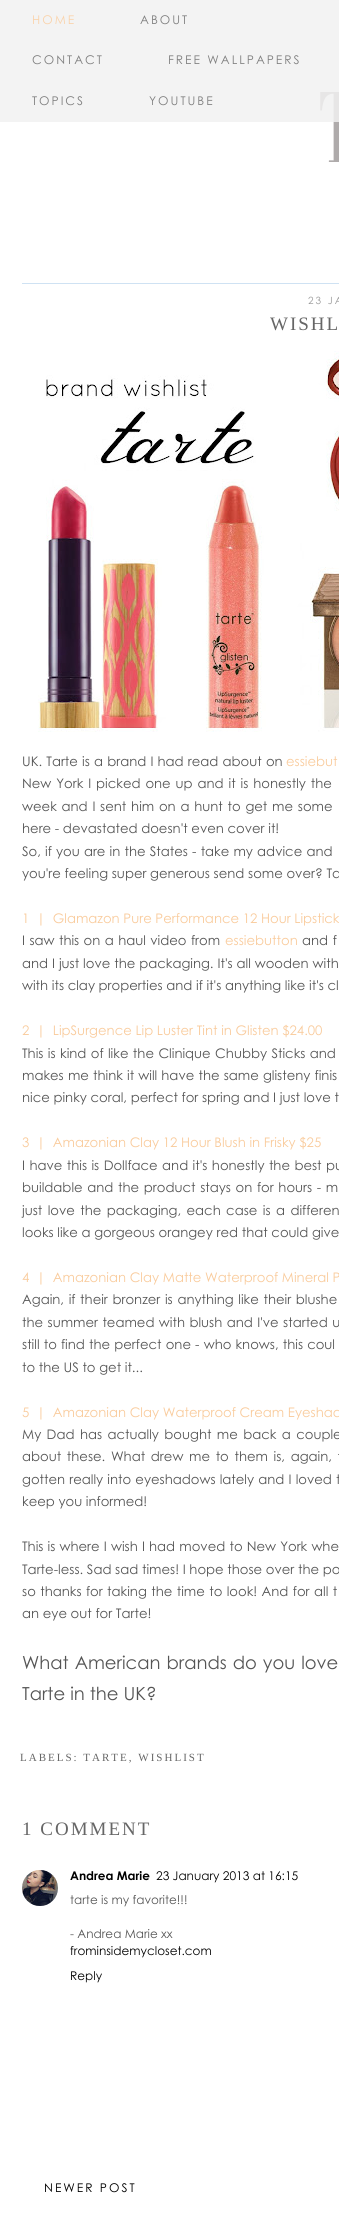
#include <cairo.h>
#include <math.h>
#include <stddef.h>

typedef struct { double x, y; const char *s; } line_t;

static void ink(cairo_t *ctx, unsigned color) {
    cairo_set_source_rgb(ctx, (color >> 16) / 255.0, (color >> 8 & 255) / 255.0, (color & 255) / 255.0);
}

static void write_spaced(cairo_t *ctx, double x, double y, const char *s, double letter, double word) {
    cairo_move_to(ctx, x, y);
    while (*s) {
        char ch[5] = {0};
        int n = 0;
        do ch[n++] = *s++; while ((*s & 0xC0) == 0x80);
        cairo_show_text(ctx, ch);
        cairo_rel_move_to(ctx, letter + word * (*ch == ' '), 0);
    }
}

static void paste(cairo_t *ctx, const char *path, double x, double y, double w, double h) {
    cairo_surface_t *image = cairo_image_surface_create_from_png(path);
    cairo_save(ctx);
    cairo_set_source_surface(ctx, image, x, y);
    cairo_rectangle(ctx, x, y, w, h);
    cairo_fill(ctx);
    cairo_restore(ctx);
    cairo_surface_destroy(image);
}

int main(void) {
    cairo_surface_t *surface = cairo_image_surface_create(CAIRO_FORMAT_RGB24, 339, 2221);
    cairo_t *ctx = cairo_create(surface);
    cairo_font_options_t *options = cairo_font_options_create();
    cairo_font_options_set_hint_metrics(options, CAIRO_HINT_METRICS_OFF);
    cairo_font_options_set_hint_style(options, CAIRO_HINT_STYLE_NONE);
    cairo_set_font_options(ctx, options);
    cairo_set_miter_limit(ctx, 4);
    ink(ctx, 0xFFFFFF);
    cairo_paint(ctx);
    paste(ctx, "media/1.png", 320, 92, 19, 70);
    cairo_set_source_rgba(ctx, 0.945, 0.945, 0.945, 0.85);
    cairo_rectangle(ctx, 0, 0, 339, 122);
    cairo_fill(ctx);
    cairo_select_font_face(ctx, "Century Gothic", CAIRO_FONT_SLANT_NORMAL, CAIRO_FONT_WEIGHT_NORMAL);
    cairo_set_font_size(ctx, 12);
    ink(ctx, 0xFAD3AB);
    write_spaced(ctx, 32, 24, "HOME", 2, 0);
    ink(ctx, 0x808080);
    {
        static const line_t items[] = {
            {140, 24, "ABOUT"},
            {32, 64, "CONTACT"},
            {168, 64, "FREE WALLPAPERS"},
            {32, 105, "TOPICS"},
            {149, 105, "YOUTUBE"},
        };
        for (size_t i = 0; i < sizeof items / sizeof *items; i++) {
            write_spaced(ctx, items[i].x, items[i].y, items[i].s, 2, 0);
        }
    }
    ink(ctx, 0xCFE2F3);
    cairo_rectangle(ctx, 22, 283, 317, 1);
    cairo_fill(ctx);
    cairo_set_font_size(ctx, 10);
    ink(ctx, 0x999999);
    write_spaced(ctx, 308, 304, "23 JA", 2, 0);
    cairo_select_font_face(ctx, "Liberation Serif", CAIRO_FONT_SLANT_NORMAL, CAIRO_FONT_WEIGHT_NORMAL);
    cairo_set_font_size(ctx, 19);
    ink(ctx, 0x666666);
    write_spaced(ctx, 270, 330, "WISHL", 2, 0);
    paste(ctx, "media/2.png", 38, 351, 301, 381);
    cairo_select_font_face(ctx, "Century Gothic", CAIRO_FONT_SLANT_NORMAL, CAIRO_FONT_WEIGHT_NORMAL);
    cairo_set_font_size(ctx, 13.2);
    ink(ctx, 0x555555);
    write_spaced(ctx, 22, 766, "UK. Tarte is a brand I had read about on", 0, 0.5);
    ink(ctx, 0xF9CB9C);
    cairo_move_to(ctx, 286, 766);
    cairo_show_text(ctx, "essiebut");
    ink(ctx, 0x555555);
    write_spaced(ctx, 22, 788, "New York I picked one up and it is honestly the", 0, 1.25);
    write_spaced(ctx, 22, 811, "week and I sent him on a hunt to get me some", 0, 1.1);
    cairo_move_to(ctx, 22, 833);
    cairo_show_text(ctx, "here - devastated doesn't even cover it!");
    write_spaced(ctx, 22, 856, "So, if you are in the States - take my advice and", 0, 0.5);
    cairo_move_to(ctx, 22, 878);
    cairo_show_text(ctx, "you're feeling super generous send some over? Ta");
    ink(ctx, 0xF9CB9C);
    cairo_move_to(ctx, 22, 923);
    cairo_show_text(ctx, "1  |  Glamazon Pure Performance 12 Hour Lipstick");
    ink(ctx, 0x555555);
    write_spaced(ctx, 22, 945, "I saw this on a haul video from", 0, 0.75);
    ink(ctx, 0xF9CB9C);
    cairo_move_to(ctx, 225, 945);
    cairo_show_text(ctx, "essiebutton");
    ink(ctx, 0x555555);
    write_spaced(ctx, 302, 945, "and f", 0, 1);
    write_spaced(ctx, 22, 968, "and I just love the packaging. It's all wooden with", 0, 0.25);
    cairo_move_to(ctx, 22, 990);
    cairo_show_text(ctx, "with its clay properties and if it's anything like it's cl");
    ink(ctx, 0xF9CB9C);
    cairo_move_to(ctx, 22, 1035);
    cairo_show_text(ctx, "2  |  LipSurgence Lip Luster Tint in Glisten $24.00");
    ink(ctx, 0x555555);
    write_spaced(ctx, 22, 1058, "This is kind of like the Clinique Chubby Sticks and", 0, 0.75);
    write_spaced(ctx, 22, 1080, "makes me think it will have the same glisteny finis", 0, 0.5);
    cairo_move_to(ctx, 22, 1102);
    cairo_show_text(ctx, "nice pinky coral, perfect for spring and I just love t");
    ink(ctx, 0xF9CB9C);
    cairo_move_to(ctx, 22, 1147);
    cairo_show_text(ctx, "3  |  Amazonian Clay 12 Hour Blush in Frisky $25");
    ink(ctx, 0x555555);
    write_spaced(ctx, 22, 1170, "I have this is Dollface and it's honestly the best pu", 0, 0.75);
    write_spaced(ctx, 22, 1192, "buildable and the product stays on for hours - m", 0, 1);
    write_spaced(ctx, 22, 1215, "just love the packaging, each case is a differen", 0, 1.75);
    cairo_move_to(ctx, 22, 1237);
    cairo_show_text(ctx, "looks like a gorgeous orangey red that could give");
    ink(ctx, 0xF9CB9C);
    cairo_move_to(ctx, 22, 1282);
    cairo_show_text(ctx, "4  |  Amazonian Clay Matte Waterproof Mineral P");
    ink(ctx, 0x555555);
    write_spaced(ctx, 22, 1304, "Again, if their bronzer is anything like their blushe", 0, 1);
    write_spaced(ctx, 22, 1327, "the summer teamed with blush and I've started u", 0, 0.75);
    write_spaced(ctx, 22, 1349, "still to find the perfect one - who knows, this coul", 0, 0.5);
    cairo_move_to(ctx, 22, 1372);
    cairo_show_text(ctx, "to the US to get it...");
    ink(ctx, 0xF9CB9C);
    cairo_move_to(ctx, 22, 1417);
    cairo_show_text(ctx, "5  |  Amazonian Clay Waterproof Cream Eyeshad");
    ink(ctx, 0x555555);
    write_spaced(ctx, 22, 1439, "My Dad has actually bought me back a couple", 0, 1.75);
    write_spaced(ctx, 22, 1461, "about these. What drew me to them is, again, t", 0, 2);
    write_spaced(ctx, 22, 1484, "gotten really into eyeshadows lately and I loved t", 0, 0.5);
    cairo_move_to(ctx, 22, 1506);
    cairo_show_text(ctx, "keep you informed!");
    write_spaced(ctx, 22, 1551, "This is where I wish I had moved to New York whe", 0, 0.5);
    cairo_move_to(ctx, 22, 1574);
    cairo_show_text(ctx, "Tarte-less. Sad sad times! I hope those over the po");
    write_spaced(ctx, 22, 1596, "so thanks for taking the time to look! And for all t", 0, 0.75);
    cairo_move_to(ctx, 22, 1618);
    cairo_show_text(ctx, "an eye out for Tarte!");
    cairo_set_font_size(ctx, 18);
    write_spaced(ctx, 22, 1669, "What American brands do you love", 0, 1);
    cairo_move_to(ctx, 22, 1700);
    cairo_show_text(ctx, "Tarte in the UK?");
    cairo_select_font_face(ctx, "Liberation Serif", CAIRO_FONT_SLANT_NORMAL, CAIRO_FONT_WEIGHT_NORMAL);
    cairo_set_font_size(ctx, 11);
    ink(ctx, 0x666666);
    write_spaced(ctx, 20, 1761, "LABELS: TARTE, WISHLIST", 2, 0);
    cairo_set_font_size(ctx, 19);
    write_spaced(ctx, 22, 1835, "1 COMMENT", 2, 0);
    paste(ctx, "media/3.png", 22, 1870, 36, 36);
    cairo_select_font_face(ctx, "Century Gothic", CAIRO_FONT_SLANT_NORMAL, CAIRO_FONT_WEIGHT_BOLD);
    cairo_set_font_size(ctx, 12);
    ink(ctx, 0x000000);
    cairo_move_to(ctx, 70, 1880);
    cairo_show_text(ctx, "Andrea Marie");
    cairo_select_font_face(ctx, "Century Gothic", CAIRO_FONT_SLANT_NORMAL, CAIRO_FONT_WEIGHT_NORMAL);
    cairo_move_to(ctx, 156, 1880);
    cairo_show_text(ctx, "23 January 2013 at 16:15");
    ink(ctx, 0x555555);
    cairo_move_to(ctx, 70, 1904);
    cairo_show_text(ctx, "tarte is my favorite!!!");
    cairo_move_to(ctx, 70, 1938);
    cairo_show_text(ctx, "- Andrea Marie xx");
    ink(ctx, 0x000000);
    cairo_move_to(ctx, 70, 1955);
    cairo_show_text(ctx, "frominsidemycloset.com");
    cairo_move_to(ctx, 70, 1980);
    cairo_show_text(ctx, "Reply");
    write_spaced(ctx, 44, 2192, "NEWER POST", 2, 0);
    cairo_surface_write_to_png(surface, "image.png");
    cairo_font_options_destroy(options);
    cairo_destroy(ctx);
    cairo_surface_destroy(surface);
    return 0;
}
